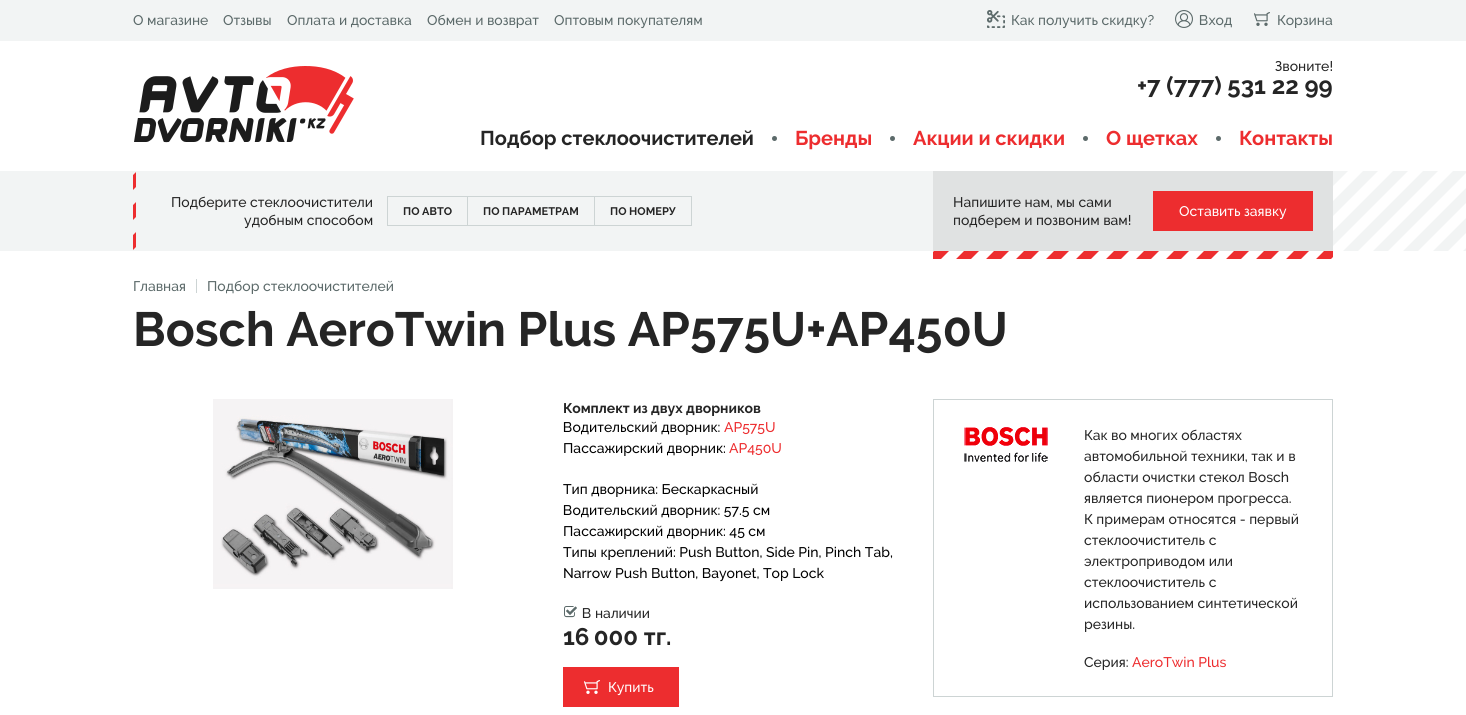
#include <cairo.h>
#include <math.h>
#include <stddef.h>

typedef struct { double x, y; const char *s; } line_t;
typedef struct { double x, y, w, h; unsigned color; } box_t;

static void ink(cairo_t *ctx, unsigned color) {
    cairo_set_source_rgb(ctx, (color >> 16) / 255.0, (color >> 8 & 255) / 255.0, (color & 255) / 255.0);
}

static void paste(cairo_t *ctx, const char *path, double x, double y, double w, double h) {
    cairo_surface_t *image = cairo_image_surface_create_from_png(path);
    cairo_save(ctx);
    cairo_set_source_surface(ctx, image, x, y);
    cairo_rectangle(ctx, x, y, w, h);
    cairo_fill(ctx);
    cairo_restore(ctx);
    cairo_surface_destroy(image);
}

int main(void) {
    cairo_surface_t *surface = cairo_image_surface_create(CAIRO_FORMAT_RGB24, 1466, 715);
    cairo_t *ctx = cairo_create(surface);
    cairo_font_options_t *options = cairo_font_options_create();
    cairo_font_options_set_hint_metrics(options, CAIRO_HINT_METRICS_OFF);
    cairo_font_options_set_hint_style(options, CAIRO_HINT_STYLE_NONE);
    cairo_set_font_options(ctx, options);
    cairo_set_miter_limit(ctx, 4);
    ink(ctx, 0xFFFFFF);
    cairo_paint(ctx);
    ink(ctx, 0xF2F4F4);
    cairo_rectangle(ctx, 0, 0, 1466, 41);
    cairo_fill(ctx);
    cairo_select_font_face(ctx, "Raleway Medium", CAIRO_FONT_SLANT_NORMAL, CAIRO_FONT_WEIGHT_NORMAL);
    cairo_set_font_size(ctx, 14);
    ink(ctx, 0x5C6A6A);
    {
        static const line_t items[] = {
            {133, 25, "О магазине"},
            {223, 25, "Отзывы"},
            {287, 25, "Оплата и доставка"},
            {427, 25, "Обмен и возврат"},
            {554, 25, "Оптовым покупателям"},
        };
        for (size_t i = 0; i < sizeof items / sizeof *items; i++) {
            cairo_move_to(ctx, items[i].x, items[i].y);
            cairo_show_text(ctx, items[i].s);
        }
    }
    paste(ctx, "media/1.png", 987, 10, 18, 18);
    cairo_move_to(ctx, 1011, 25);
    cairo_show_text(ctx, "Как получить скидку?");
    paste(ctx, "media/2.png", 1175, 10, 18, 18);
    cairo_move_to(ctx, 1199, 25);
    cairo_show_text(ctx, "Вход");
    paste(ctx, "media/3.png", 1254, 12, 16, 14);
    cairo_move_to(ctx, 1277, 25);
    cairo_show_text(ctx, "Корзина");
    paste(ctx, "media/4.png", 134, 66, 220, 77);
    ink(ctx, 0x252525);
    cairo_move_to(ctx, 1275, 71);
    cairo_show_text(ctx, "Звоните!");
    cairo_select_font_face(ctx, "Raleway", CAIRO_FONT_SLANT_NORMAL, CAIRO_FONT_WEIGHT_BOLD);
    cairo_set_font_size(ctx, 24);
    cairo_move_to(ctx, 1137, 94);
    cairo_show_text(ctx, "+7 (777) 531 22 99");
    cairo_set_font_size(ctx, 20);
    cairo_move_to(ctx, 480, 145);
    cairo_show_text(ctx, "Подбор стеклоочистителей");
    ink(ctx, 0x5C6A6A);
    cairo_new_path(ctx);
    cairo_arc(ctx, 774.5, 138.5, 2.5, 0, 2 * M_PI);
    cairo_fill(ctx);
    ink(ctx, 0xED2D2F);
    cairo_move_to(ctx, 795, 145);
    cairo_show_text(ctx, "Бренды");
    ink(ctx, 0x5C6A6A);
    cairo_new_path(ctx);
    cairo_arc(ctx, 892.5, 138.5, 2.5, 0, 2 * M_PI);
    cairo_fill(ctx);
    ink(ctx, 0xED2D2F);
    cairo_move_to(ctx, 913, 145);
    cairo_show_text(ctx, "Акции и скидки");
    ink(ctx, 0x5C6A6A);
    cairo_new_path(ctx);
    cairo_arc(ctx, 1085.5, 138.5, 2.5, 0, 2 * M_PI);
    cairo_fill(ctx);
    ink(ctx, 0xED2D2F);
    cairo_move_to(ctx, 1106, 145);
    cairo_show_text(ctx, "О щетках");
    ink(ctx, 0x5C6A6A);
    cairo_new_path(ctx);
    cairo_arc(ctx, 1218.5, 138.5, 2.5, 0, 2 * M_PI);
    cairo_fill(ctx);
    ink(ctx, 0xED2D2F);
    cairo_move_to(ctx, 1239, 145);
    cairo_show_text(ctx, "Контакты");
    ink(ctx, 0xF2F4F4);
    cairo_rectangle(ctx, 0, 171, 933, 80);
    cairo_fill(ctx);
    paste(ctx, "media/5.png", 133, 172, 3, 78);
    cairo_select_font_face(ctx, "Raleway Medium", CAIRO_FONT_SLANT_NORMAL, CAIRO_FONT_WEIGHT_NORMAL);
    cairo_set_font_size(ctx, 14);
    ink(ctx, 0x252525);
    cairo_move_to(ctx, 171, 207);
    cairo_show_text(ctx, "Подберите стеклоочистители");
    cairo_move_to(ctx, 244, 225);
    cairo_show_text(ctx, "удобным способом");
    {
        static const box_t items[] = {
            {387, 196, 207, 1, 0xCDD4D4},
            {387, 225, 207, 1, 0xCDD4D4},
            {387, 196, 1, 30, 0xCDD4D4},
        };
        for (size_t i = 0; i < sizeof items / sizeof *items; i++) {
            ink(ctx, items[i].color);
            cairo_rectangle(ctx, items[i].x, items[i].y, items[i].w, items[i].h);
            cairo_fill(ctx);
        }
    }
    cairo_select_font_face(ctx, "Raleway", CAIRO_FONT_SLANT_NORMAL, CAIRO_FONT_WEIGHT_BOLD);
    cairo_set_font_size(ctx, 11);
    ink(ctx, 0x252525);
    cairo_move_to(ctx, 403, 215);
    cairo_show_text(ctx, "ПО АВТО");
    ink(ctx, 0xCDD4D4);
    cairo_rectangle(ctx, 467, 196, 1, 30);
    cairo_fill(ctx);
    ink(ctx, 0x252525);
    cairo_move_to(ctx, 483, 215);
    cairo_show_text(ctx, "ПО ПАРАМЕТРАМ");
    cairo_rectangle(ctx, 594.5, 196.5, 97, 29);
    ink(ctx, 0xCDD4D4);
    cairo_set_line_width(ctx, 1);
    cairo_stroke(ctx);
    ink(ctx, 0x252525);
    cairo_move_to(ctx, 610, 215);
    cairo_show_text(ctx, "ПО НОМЕРУ");
    ink(ctx, 0xE0E2E2);
    cairo_rectangle(ctx, 933, 171, 400, 80);
    cairo_fill(ctx);
    cairo_select_font_face(ctx, "Raleway Medium", CAIRO_FONT_SLANT_NORMAL, CAIRO_FONT_WEIGHT_NORMAL);
    cairo_set_font_size(ctx, 14);
    ink(ctx, 0x252525);
    cairo_move_to(ctx, 953, 207);
    cairo_show_text(ctx, "Напишите нам, мы сами");
    cairo_move_to(ctx, 953, 225);
    cairo_show_text(ctx, "подберем и позвоним вам!");
    ink(ctx, 0xED2D2F);
    cairo_rectangle(ctx, 1153, 191, 160, 40);
    cairo_fill(ctx);
    ink(ctx, 0xFFFFFF);
    cairo_move_to(ctx, 1179, 216);
    cairo_show_text(ctx, "Оставить заявку");
    paste(ctx, "media/6.png", 1333, 171, 133, 80);
    paste(ctx, "media/7.png", 933, 251, 400, 8);
    ink(ctx, 0x5C6A6A);
    cairo_move_to(ctx, 133, 291);
    cairo_show_text(ctx, "Главная");
    ink(ctx, 0xCDD4D4);
    cairo_rectangle(ctx, 196, 279, 1, 14);
    cairo_fill(ctx);
    ink(ctx, 0x5C6A6A);
    cairo_move_to(ctx, 207, 291);
    cairo_show_text(ctx, "Подбор стеклоочистителей");
    cairo_select_font_face(ctx, "Raleway", CAIRO_FONT_SLANT_NORMAL, CAIRO_FONT_WEIGHT_BOLD);
    cairo_set_font_size(ctx, 48);
    ink(ctx, 0x252525);
    cairo_move_to(ctx, 133, 346);
    cairo_show_text(ctx, "Bosch AeroTwin Plus AP575U+AP450U");
    paste(ctx, "media/8.png", 213, 399, 240, 190);
    cairo_set_font_size(ctx, 14);
    cairo_move_to(ctx, 563, 413);
    cairo_show_text(ctx, "Комплект из двух дворников");
    cairo_select_font_face(ctx, "Raleway Medium", CAIRO_FONT_SLANT_NORMAL, CAIRO_FONT_WEIGHT_NORMAL);
    ink(ctx, 0x000000);
    cairo_move_to(ctx, 563, 432);
    cairo_show_text(ctx, "Водительский дворник:");
    ink(ctx, 0xED2D2F);
    cairo_move_to(ctx, 724, 432);
    cairo_show_text(ctx, "AP575U");
    ink(ctx, 0x000000);
    cairo_move_to(ctx, 563, 453);
    cairo_show_text(ctx, "Пассажирский дворник:");
    ink(ctx, 0xED2D2F);
    cairo_move_to(ctx, 729, 453);
    cairo_show_text(ctx, "AP450U");
    ink(ctx, 0x000000);
    {
        static const line_t items[] = {
            {563, 494, "Тип дворника: Бескаркасный"},
            {563, 515, "Водительский дворник: 57.5 см"},
            {563, 536, "Пассажирский дворник: 45 см"},
            {563, 557, "Типы креплений: Push Button, Side Pin, Pinch Tab,"},
            {563, 578, "Narrow Push Button, Bayonet, Top Lock"},
        };
        for (size_t i = 0; i < sizeof items / sizeof *items; i++) {
            cairo_move_to(ctx, items[i].x, items[i].y);
            cairo_show_text(ctx, items[i].s);
        }
    }
    paste(ctx, "media/9.png", 564, 606, 13, 12);
    ink(ctx, 0x252525);
    cairo_move_to(ctx, 582, 618);
    cairo_show_text(ctx, "В наличии");
    cairo_select_font_face(ctx, "Raleway", CAIRO_FONT_SLANT_NORMAL, CAIRO_FONT_WEIGHT_BOLD);
    cairo_set_font_size(ctx, 24);
    cairo_move_to(ctx, 563, 645);
    cairo_show_text(ctx, "16 000 тг.");
    ink(ctx, 0xED2D2F);
    cairo_rectangle(ctx, 563, 667, 116, 40);
    cairo_fill(ctx);
    paste(ctx, "media/10.png", 584, 680, 16, 14);
    cairo_select_font_face(ctx, "Raleway Medium", CAIRO_FONT_SLANT_NORMAL, CAIRO_FONT_WEIGHT_NORMAL);
    cairo_set_font_size(ctx, 14);
    ink(ctx, 0xFFFFFF);
    cairo_move_to(ctx, 608, 692);
    cairo_show_text(ctx, "Купить");
    cairo_rectangle(ctx, 933.5, 399.5, 399, 297);
    ink(ctx, 0xCDD4D4);
    cairo_stroke(ctx);
    paste(ctx, "media/11.png", 964, 427, 84, 35);
    ink(ctx, 0x252525);
    {
        static const line_t items[] = {
            {1084, 440, "Как во многих областях"},
            {1084, 461, "автомобильной техники, так и в"},
            {1084, 482, "области очистки стекол Bosch"},
            {1084, 503, "является пионером прогресса."},
            {1084, 524, "К примерам относятся - первый"},
            {1084, 545, "стеклоочиститель с"},
            {1084, 566, "электроприводом или"},
            {1084, 587, "стеклоочиститель с"},
            {1084, 608, "использованием синтетической"},
            {1084, 629, "резины."},
            {1084, 667, "Серия:"},
        };
        for (size_t i = 0; i < sizeof items / sizeof *items; i++) {
            cairo_move_to(ctx, items[i].x, items[i].y);
            cairo_show_text(ctx, items[i].s);
        }
    }
    ink(ctx, 0xED2D2F);
    cairo_move_to(ctx, 1132, 667);
    cairo_show_text(ctx, "AeroTwin Plus");
    cairo_surface_write_to_png(surface, "image.png");
    cairo_font_options_destroy(options);
    cairo_destroy(ctx);
    cairo_surface_destroy(surface);
    return 0;
}
